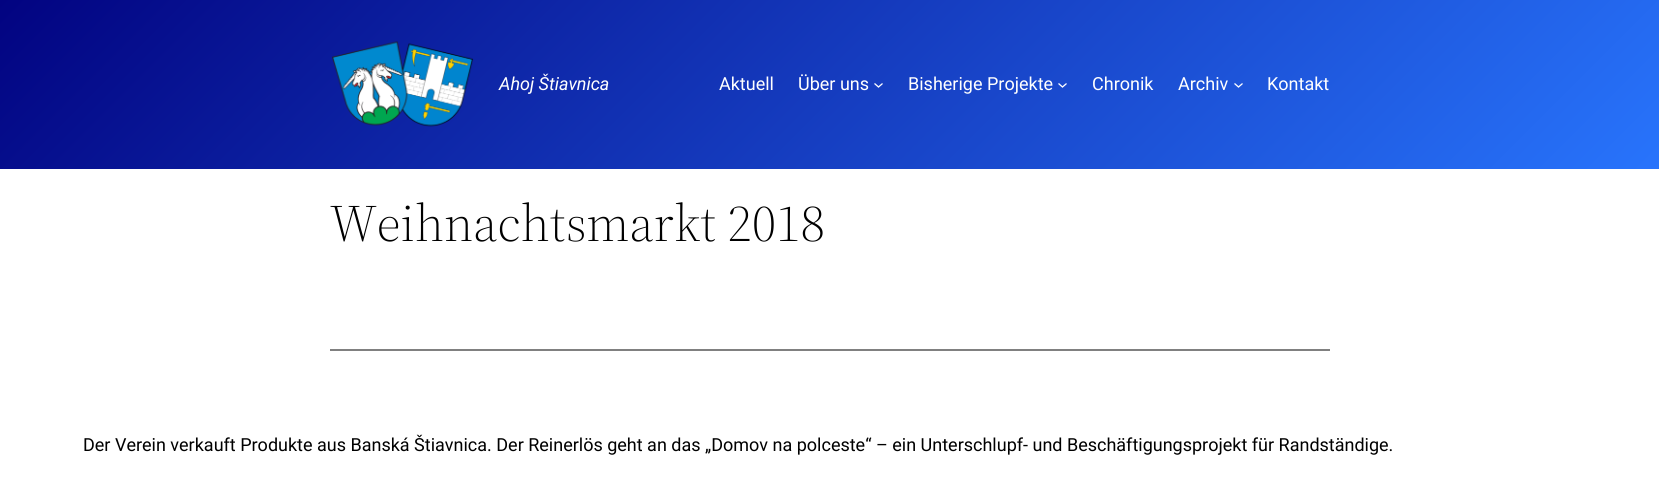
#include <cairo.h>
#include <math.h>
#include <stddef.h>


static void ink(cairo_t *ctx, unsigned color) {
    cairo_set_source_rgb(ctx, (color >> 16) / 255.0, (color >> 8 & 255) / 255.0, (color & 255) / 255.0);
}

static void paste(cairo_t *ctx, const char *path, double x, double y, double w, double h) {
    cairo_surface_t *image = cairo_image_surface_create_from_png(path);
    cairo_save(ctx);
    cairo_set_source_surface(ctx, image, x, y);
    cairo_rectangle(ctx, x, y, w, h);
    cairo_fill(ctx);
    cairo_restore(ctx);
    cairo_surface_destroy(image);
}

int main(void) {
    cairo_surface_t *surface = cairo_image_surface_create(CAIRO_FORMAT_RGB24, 1659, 494);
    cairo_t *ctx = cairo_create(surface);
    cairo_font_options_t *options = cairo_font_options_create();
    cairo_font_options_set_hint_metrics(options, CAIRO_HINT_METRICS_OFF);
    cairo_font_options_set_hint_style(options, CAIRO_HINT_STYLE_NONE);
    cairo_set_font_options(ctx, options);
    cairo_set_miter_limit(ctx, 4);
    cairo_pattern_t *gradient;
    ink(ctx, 0xFFFFFF);
    cairo_paint(ctx);
    gradient = cairo_pattern_create_linear(373, -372, 1287, 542);
    cairo_pattern_add_color_stop_rgba(gradient, 0, 0.008, 0.012, 0.506, 1);
    cairo_pattern_add_color_stop_rgba(gradient, 1, 0.157, 0.455, 0.988, 1);
    cairo_set_source(ctx, gradient);
    cairo_pattern_destroy(gradient);
    cairo_rectangle(ctx, 0, 0, 1659, 169);
    cairo_fill(ctx);
    paste(ctx, "media/1.png", 332, 41, 142, 86);
    cairo_select_font_face(ctx, "Roboto", CAIRO_FONT_SLANT_ITALIC, CAIRO_FONT_WEIGHT_NORMAL);
    cairo_set_font_size(ctx, 18);
    ink(ctx, 0xFFFFFF);
    cairo_move_to(ctx, 499, 90);
    cairo_show_text(ctx, "Ahoj Štiavnica");
    cairo_select_font_face(ctx, "Roboto", CAIRO_FONT_SLANT_NORMAL, CAIRO_FONT_WEIGHT_NORMAL);
    cairo_move_to(ctx, 719, 90);
    cairo_show_text(ctx, "Aktuell");
    cairo_move_to(ctx, 798, 90);
    cairo_show_text(ctx, "Über uns");
    cairo_new_path(ctx);
    cairo_move_to(ctx, 874.5, 83.5);
    cairo_line_to(ctx, 878.5, 87);
    cairo_line_to(ctx, 882.5, 83.5);
    cairo_set_line_width(ctx, 1.3);
    cairo_stroke(ctx);
    cairo_move_to(ctx, 908, 90);
    cairo_show_text(ctx, "Bisherige Projekte");
    cairo_new_path(ctx);
    cairo_move_to(ctx, 1058.5, 83.5);
    cairo_line_to(ctx, 1062.5, 87);
    cairo_line_to(ctx, 1066.5, 83.5);
    cairo_stroke(ctx);
    cairo_move_to(ctx, 1092, 90);
    cairo_show_text(ctx, "Chronik");
    cairo_move_to(ctx, 1178, 90);
    cairo_show_text(ctx, "Archiv");
    cairo_new_path(ctx);
    cairo_move_to(ctx, 1234.5, 83.5);
    cairo_line_to(ctx, 1238.5, 87);
    cairo_line_to(ctx, 1242.5, 83.5);
    cairo_stroke(ctx);
    cairo_move_to(ctx, 1267, 90);
    cairo_show_text(ctx, "Kontakt");
    cairo_select_font_face(ctx, "Source Serif 4 Light", CAIRO_FONT_SLANT_NORMAL, CAIRO_FONT_WEIGHT_NORMAL);
    cairo_set_font_size(ctx, 52);
    ink(ctx, 0x000000);
    cairo_move_to(ctx, 330, 241);
    cairo_show_text(ctx, "Weihnachtsmarkt 2018");
    ink(ctx, 0x808080);
    cairo_rectangle(ctx, 330, 349, 1000, 2);
    cairo_fill(ctx);
    cairo_select_font_face(ctx, "Roboto", CAIRO_FONT_SLANT_NORMAL, CAIRO_FONT_WEIGHT_NORMAL);
    cairo_set_font_size(ctx, 18);
    ink(ctx, 0x000000);
    cairo_move_to(ctx, 83, 451);
    cairo_show_text(ctx, "Der Verein verkauft Produkte aus Banská Štiavnica. Der Reinerlös geht an das „Domov na polceste“ – ein Unterschlupf- und Beschäftigungsprojekt für Randständige.");
    cairo_surface_write_to_png(surface, "image.png");
    cairo_font_options_destroy(options);
    cairo_destroy(ctx);
    cairo_surface_destroy(surface);
    return 0;
}
